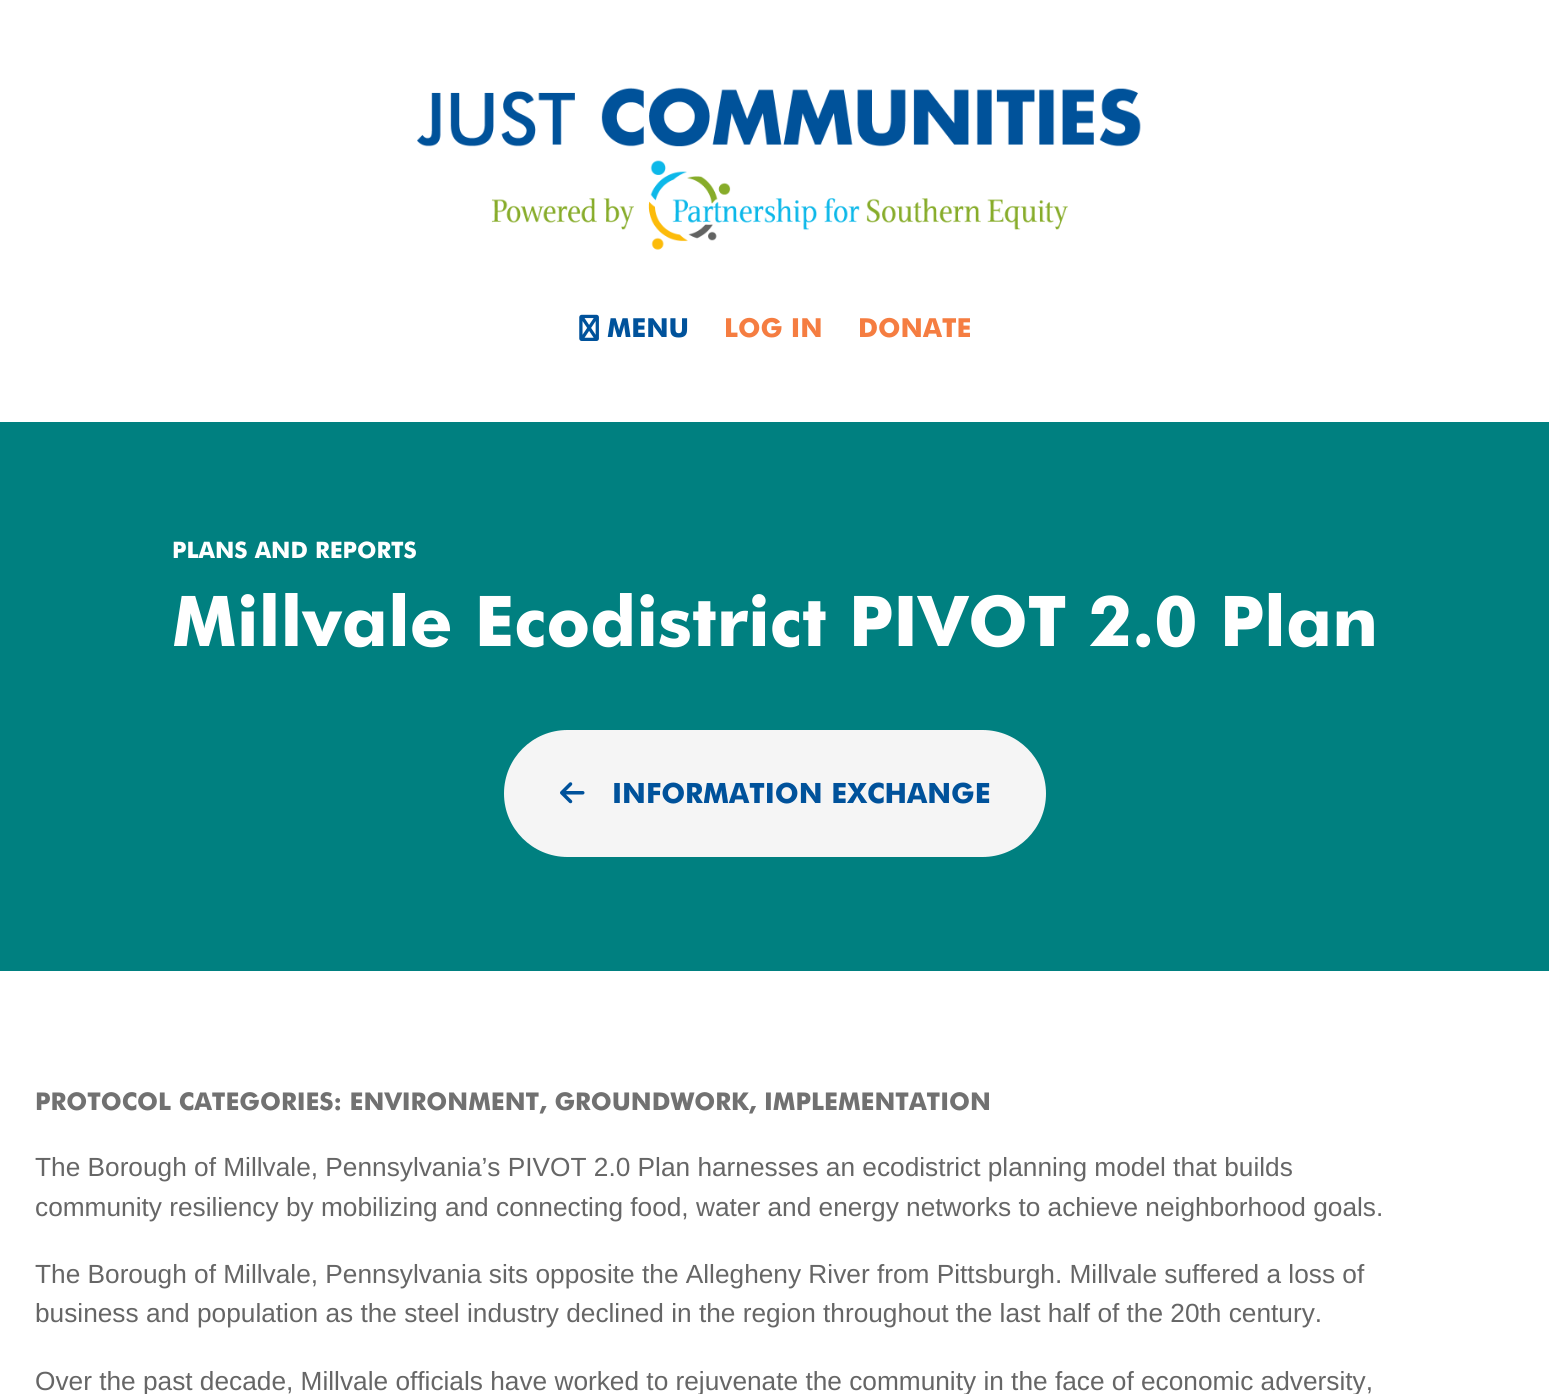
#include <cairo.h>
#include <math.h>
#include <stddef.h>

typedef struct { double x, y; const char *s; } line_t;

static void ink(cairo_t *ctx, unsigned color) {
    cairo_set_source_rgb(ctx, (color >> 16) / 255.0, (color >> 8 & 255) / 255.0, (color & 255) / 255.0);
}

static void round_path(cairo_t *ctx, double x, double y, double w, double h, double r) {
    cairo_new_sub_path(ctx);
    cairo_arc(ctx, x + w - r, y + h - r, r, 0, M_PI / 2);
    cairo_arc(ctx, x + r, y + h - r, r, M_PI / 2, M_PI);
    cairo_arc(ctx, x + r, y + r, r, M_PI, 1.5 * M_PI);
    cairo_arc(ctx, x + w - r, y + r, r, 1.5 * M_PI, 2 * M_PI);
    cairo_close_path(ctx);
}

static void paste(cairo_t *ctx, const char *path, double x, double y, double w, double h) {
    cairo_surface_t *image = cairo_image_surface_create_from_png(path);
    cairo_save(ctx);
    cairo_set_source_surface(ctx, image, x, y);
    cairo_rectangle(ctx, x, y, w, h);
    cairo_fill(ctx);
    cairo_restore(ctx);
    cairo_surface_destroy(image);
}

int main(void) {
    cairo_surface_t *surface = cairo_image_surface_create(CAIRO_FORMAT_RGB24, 1549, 1394);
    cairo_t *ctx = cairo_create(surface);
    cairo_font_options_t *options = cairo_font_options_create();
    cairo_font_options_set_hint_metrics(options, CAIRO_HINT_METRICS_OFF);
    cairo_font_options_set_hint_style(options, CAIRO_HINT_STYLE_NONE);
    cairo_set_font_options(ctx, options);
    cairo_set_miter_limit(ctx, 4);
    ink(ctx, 0xFFFFFF);
    cairo_paint(ctx);
    paste(ctx, "media/1.png", 417, 87, 724, 163);
    paste(ctx, "media/2.png", 579, 314, 20, 27);
    cairo_select_font_face(ctx, "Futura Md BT", CAIRO_FONT_SLANT_NORMAL, CAIRO_FONT_WEIGHT_BOLD);
    cairo_set_font_size(ctx, 26.25);
    ink(ctx, 0x00529B);
    cairo_move_to(ctx, 607, 337);
    cairo_show_text(ctx, "MENU");
    ink(ctx, 0xF57D41);
    cairo_move_to(ctx, 724, 337);
    cairo_show_text(ctx, "LOG IN");
    cairo_move_to(ctx, 858, 337);
    cairo_show_text(ctx, "DONATE");
    ink(ctx, 0x008080);
    cairo_rectangle(ctx, 0, 422, 1549, 549);
    cairo_fill(ctx);
    cairo_set_font_size(ctx, 22.75);
    ink(ctx, 0xFFFFFF);
    cairo_move_to(ctx, 172, 558);
    cairo_show_text(ctx, "PLANS AND REPORTS");
    cairo_set_font_size(ctx, 70);
    cairo_move_to(ctx, 172, 646);
    cairo_show_text(ctx, "Millvale Ecodistrict PIVOT 2.0 Plan");
    ink(ctx, 0xF5F5F5);
    round_path(ctx, 503, 729, 544, 129, 64.5);
    cairo_fill_preserve(ctx);
    ink(ctx, 0x008080);
    cairo_stroke(ctx);
    paste(ctx, "media/3.png", 560, 782, 25, 22);
    cairo_set_font_size(ctx, 28);
    ink(ctx, 0x00529B);
    cairo_move_to(ctx, 612, 803);
    cairo_show_text(ctx, "INFORMATION EXCHANGE");
    cairo_set_font_size(ctx, 24.5);
    ink(ctx, 0x717171);
    cairo_move_to(ctx, 35, 1110);
    cairo_show_text(ctx, "PROTOCOL CATEGORIES: ENVIRONMENT, GROUNDWORK, IMPLEMENTATION");
    cairo_select_font_face(ctx, "Liberation Sans", CAIRO_FONT_SLANT_NORMAL, CAIRO_FONT_WEIGHT_NORMAL);
    cairo_set_font_size(ctx, 26.25);
    ink(ctx, 0x666666);
    {
        static const line_t items[] = {
            {35, 1176, "The Borough of Millvale, Pennsylvania’s PIVOT 2.0 Plan harnesses an ecodistrict planning model that builds"},
            {35, 1216, "community resiliency by mobilizing and connecting food, water and energy networks to achieve neighborhood goals."},
            {35, 1283, "The Borough of Millvale, Pennsylvania sits opposite the Allegheny River from Pittsburgh. Millvale suffered a loss of"},
            {35, 1322, "business and population as the steel industry declined in the region throughout the last half of the 20th century."},
            {35, 1390, "Over the past decade, Millvale officials have worked to rejuvenate the community in the face of economic adversity,"},
        };
        for (size_t i = 0; i < sizeof items / sizeof *items; i++) {
            cairo_move_to(ctx, items[i].x, items[i].y);
            cairo_show_text(ctx, items[i].s);
        }
    }
    cairo_surface_write_to_png(surface, "image.png");
    cairo_font_options_destroy(options);
    cairo_destroy(ctx);
    cairo_surface_destroy(surface);
    return 0;
}
